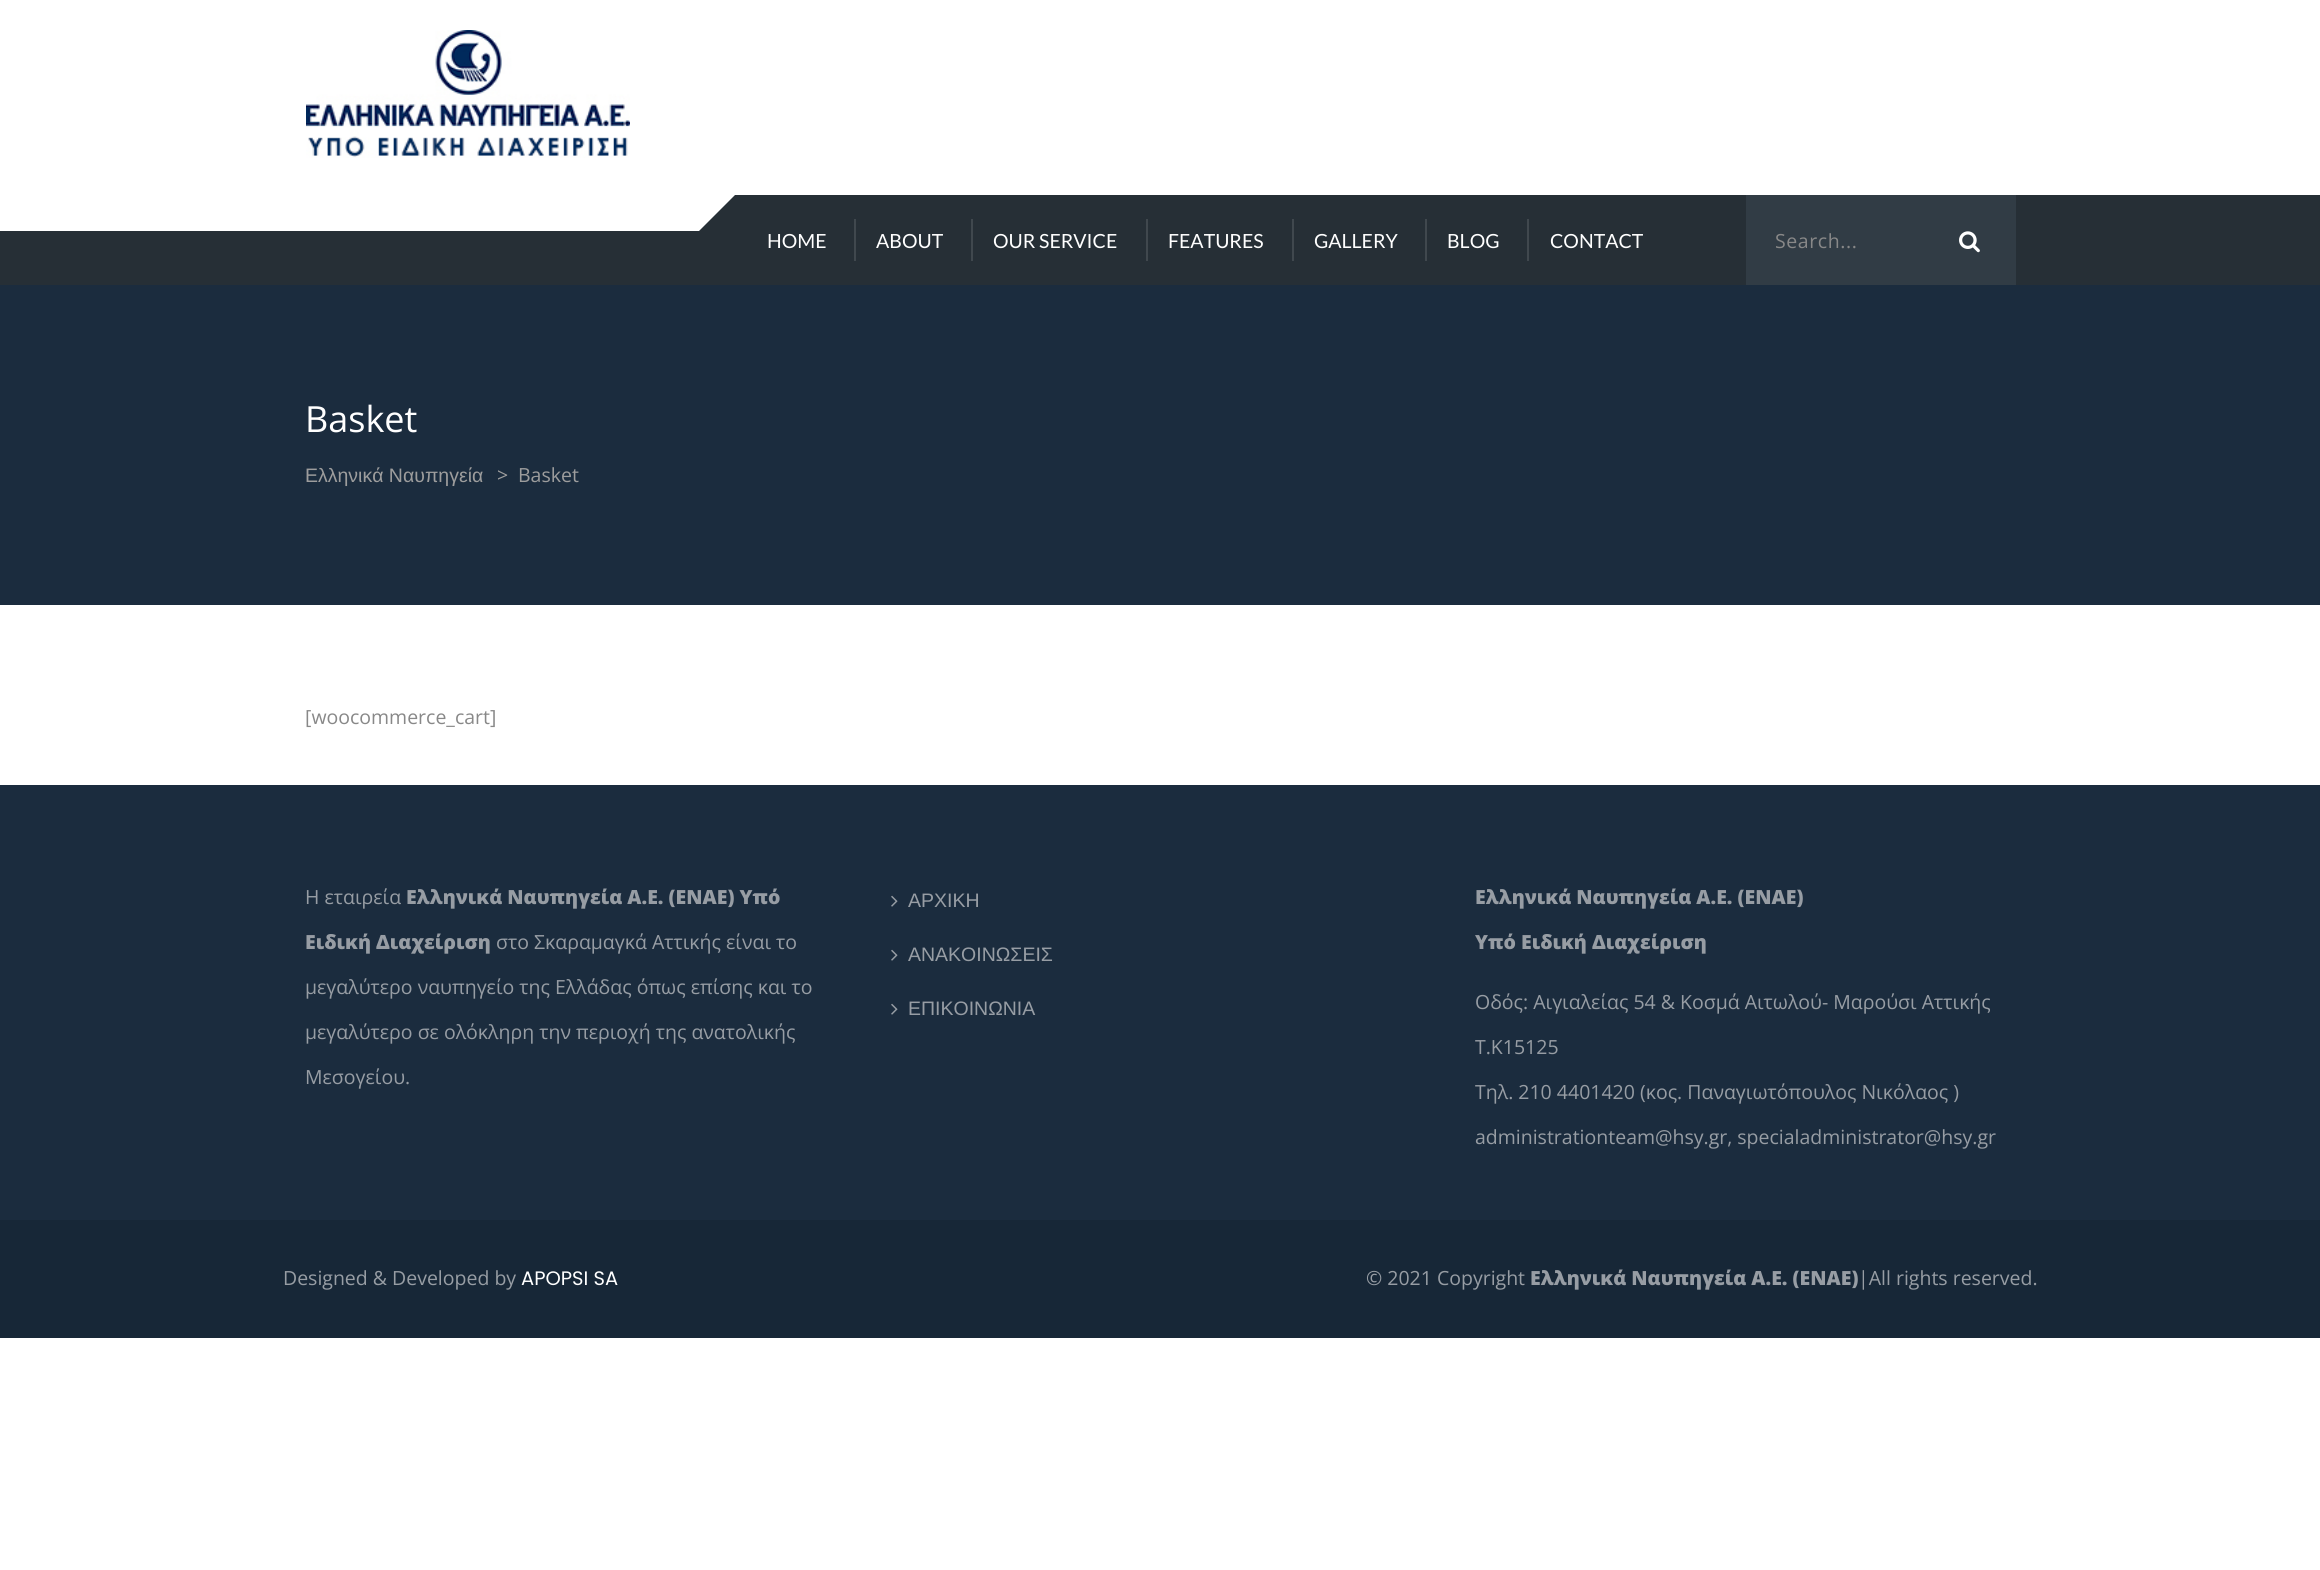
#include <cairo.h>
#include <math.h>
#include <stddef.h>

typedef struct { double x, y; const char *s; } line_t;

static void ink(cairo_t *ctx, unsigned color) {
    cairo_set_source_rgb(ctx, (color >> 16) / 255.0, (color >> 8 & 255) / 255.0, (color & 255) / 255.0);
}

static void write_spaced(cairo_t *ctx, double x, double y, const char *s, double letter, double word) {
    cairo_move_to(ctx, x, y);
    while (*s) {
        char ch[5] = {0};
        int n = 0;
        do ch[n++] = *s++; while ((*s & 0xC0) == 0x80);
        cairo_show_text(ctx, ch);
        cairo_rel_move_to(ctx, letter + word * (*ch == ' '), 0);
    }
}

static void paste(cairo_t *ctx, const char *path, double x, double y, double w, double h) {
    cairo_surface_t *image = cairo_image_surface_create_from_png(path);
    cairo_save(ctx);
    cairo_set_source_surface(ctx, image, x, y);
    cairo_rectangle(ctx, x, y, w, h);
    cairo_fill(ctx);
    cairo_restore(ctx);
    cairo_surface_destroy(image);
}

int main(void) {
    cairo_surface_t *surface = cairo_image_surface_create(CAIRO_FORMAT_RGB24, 2320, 1570);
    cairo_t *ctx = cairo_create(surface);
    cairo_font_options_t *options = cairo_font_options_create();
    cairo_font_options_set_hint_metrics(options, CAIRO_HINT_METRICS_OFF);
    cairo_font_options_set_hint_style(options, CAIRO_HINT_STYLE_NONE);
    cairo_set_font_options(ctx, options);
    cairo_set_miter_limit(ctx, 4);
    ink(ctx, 0xFFFFFF);
    cairo_paint(ctx);
    paste(ctx, "media/1.png", 306, 30, 324, 128);
    ink(ctx, 0x262F36);
    cairo_rectangle(ctx, 0, 195, 2320, 90);
    cairo_fill(ctx);
    ink(ctx, 0xFFFFFF);
    cairo_new_path(ctx);
    cairo_move_to(ctx, -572, 186);
    cairo_line_to(ctx, 744, 186);
    cairo_line_to(ctx, 699, 231);
    cairo_line_to(ctx, -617, 231);
    cairo_close_path(ctx);
    cairo_fill(ctx);
    cairo_select_font_face(ctx, "Lato", CAIRO_FONT_SLANT_NORMAL, CAIRO_FONT_WEIGHT_NORMAL);
    cairo_set_font_size(ctx, 19.5);
    cairo_move_to(ctx, 767, 248);
    cairo_show_text(ctx, "HOME");
    ink(ctx, 0x40484E);
    cairo_rectangle(ctx, 854, 219, 2, 42);
    cairo_fill(ctx);
    ink(ctx, 0xFFFFFF);
    cairo_move_to(ctx, 876, 248);
    cairo_show_text(ctx, "ABOUT");
    ink(ctx, 0x40484E);
    cairo_rectangle(ctx, 971, 219, 2, 42);
    cairo_fill(ctx);
    ink(ctx, 0xFFFFFF);
    cairo_move_to(ctx, 993, 248);
    cairo_show_text(ctx, "OUR SERVICE");
    ink(ctx, 0x40484E);
    cairo_rectangle(ctx, 1146, 219, 2, 42);
    cairo_fill(ctx);
    ink(ctx, 0xFFFFFF);
    cairo_move_to(ctx, 1168, 248);
    cairo_show_text(ctx, "FEATURES");
    ink(ctx, 0x40484E);
    cairo_rectangle(ctx, 1292, 219, 2, 42);
    cairo_fill(ctx);
    ink(ctx, 0xFFFFFF);
    cairo_move_to(ctx, 1314, 248);
    cairo_show_text(ctx, "GALLERY");
    ink(ctx, 0x40484E);
    cairo_rectangle(ctx, 1425, 219, 2, 42);
    cairo_fill(ctx);
    ink(ctx, 0xFFFFFF);
    cairo_move_to(ctx, 1447, 248);
    cairo_show_text(ctx, "BLOG");
    ink(ctx, 0x40484E);
    cairo_rectangle(ctx, 1527, 219, 2, 42);
    cairo_fill(ctx);
    ink(ctx, 0xFFFFFF);
    cairo_move_to(ctx, 1550, 248);
    cairo_show_text(ctx, "CONTACT");
    ink(ctx, 0x313C45);
    cairo_rectangle(ctx, 1746, 195, 270, 90);
    cairo_fill(ctx);
    cairo_select_font_face(ctx, "Open Sans", CAIRO_FONT_SLANT_NORMAL, CAIRO_FONT_WEIGHT_NORMAL);
    ink(ctx, 0x888888);
    write_spaced(ctx, 1775, 248, "Search...", 0.6, 0);
    paste(ctx, "media/2.png", 1959, 231, 21, 22);
    ink(ctx, 0x1B2C3E);
    cairo_rectangle(ctx, 0, 285, 2320, 320);
    cairo_fill(ctx);
    cairo_set_font_size(ctx, 36);
    ink(ctx, 0xFFFFFF);
    cairo_move_to(ctx, 305, 432);
    cairo_show_text(ctx, "Basket");
    cairo_select_font_face(ctx, "Liberation Sans", CAIRO_FONT_SLANT_NORMAL, CAIRO_FONT_WEIGHT_NORMAL);
    cairo_set_font_size(ctx, 19.5);
    ink(ctx, 0x9D9D9D);
    cairo_move_to(ctx, 305, 482);
    cairo_show_text(ctx, "Ελληνικά Ναυπηγεία");
    cairo_select_font_face(ctx, "Open Sans", CAIRO_FONT_SLANT_NORMAL, CAIRO_FONT_WEIGHT_NORMAL);
    cairo_move_to(ctx, 497, 482);
    cairo_show_text(ctx, ">");
    cairo_move_to(ctx, 518, 482);
    cairo_show_text(ctx, "Basket");
    ink(ctx, 0x888888);
    cairo_move_to(ctx, 305, 724);
    cairo_show_text(ctx, "[woocommerce_cart]");
    ink(ctx, 0x1B2C3E);
    cairo_rectangle(ctx, 0, 785, 2320, 435);
    cairo_fill(ctx);
    ink(ctx, 0x979DA4);
    cairo_move_to(ctx, 305, 904);
    cairo_show_text(ctx, "Η εταιρεία");
    cairo_select_font_face(ctx, "Open Sans ExtraBold", CAIRO_FONT_SLANT_NORMAL, CAIRO_FONT_WEIGHT_NORMAL);
    cairo_move_to(ctx, 406, 904);
    cairo_show_text(ctx, "Ελληνικά Ναυπηγεία Α.Ε. (ΕΝΑΕ) Υπό");
    cairo_move_to(ctx, 305, 949);
    cairo_show_text(ctx, "Ειδική Διαχείριση");
    cairo_select_font_face(ctx, "Open Sans", CAIRO_FONT_SLANT_NORMAL, CAIRO_FONT_WEIGHT_NORMAL);
    {
        static const line_t items[] = {
            {496, 949, "στο Σκαραμαγκά Αττικής είναι το"},
            {305, 994, "μεγαλύτερο ναυπηγείο της Ελλάδας όπως επίσης και το"},
            {305, 1039, "μεγαλύτερο σε ολόκληρη την περιοχή της ανατολικής"},
            {305, 1084, "Μεσογείου."},
        };
        for (size_t i = 0; i < sizeof items / sizeof *items; i++) {
            cairo_move_to(ctx, items[i].x, items[i].y);
            cairo_show_text(ctx, items[i].s);
        }
    }
    paste(ctx, "media/3.png", 891, 895, 7, 12);
    cairo_select_font_face(ctx, "Liberation Sans", CAIRO_FONT_SLANT_NORMAL, CAIRO_FONT_WEIGHT_NORMAL);
    cairo_move_to(ctx, 908, 907);
    cairo_show_text(ctx, "ΑΡΧΙΚΗ");
    paste(ctx, "media/3.png", 891, 949, 7, 12);
    cairo_move_to(ctx, 908, 961);
    cairo_show_text(ctx, "ΑΝΑΚΟΙΝΩΣΕΙΣ");
    paste(ctx, "media/3.png", 891, 1003, 7, 12);
    cairo_move_to(ctx, 908, 1015);
    cairo_show_text(ctx, "ΕΠΙΚΟΙΝΩΝΙΑ");
    cairo_select_font_face(ctx, "Open Sans ExtraBold", CAIRO_FONT_SLANT_NORMAL, CAIRO_FONT_WEIGHT_NORMAL);
    cairo_move_to(ctx, 1475, 904);
    cairo_show_text(ctx, "Ελληνικά Ναυπηγεία Α.Ε. (ΕΝΑΕ)");
    cairo_move_to(ctx, 1475, 949);
    cairo_show_text(ctx, "Υπό Ειδική Διαχείριση");
    cairo_select_font_face(ctx, "Open Sans", CAIRO_FONT_SLANT_NORMAL, CAIRO_FONT_WEIGHT_NORMAL);
    {
        static const line_t items[] = {
            {1475, 1009, "Οδός: Αιγιαλείας 54 & Κοσμά Αιτωλού- Μαρούσι Αττικής"},
            {1475, 1054, "Τ.Κ15125"},
            {1475, 1099, "Τηλ. 210 4401420 (κος. Παναγιωτόπουλος Νικόλαος )"},
            {1475, 1144, "administrationteam@hsy.gr, specialadministrator@hsy.gr"},
        };
        for (size_t i = 0; i < sizeof items / sizeof *items; i++) {
            cairo_move_to(ctx, items[i].x, items[i].y);
            cairo_show_text(ctx, items[i].s);
        }
    }
    ink(ctx, 0x172737);
    cairo_rectangle(ctx, 0, 1220, 2320, 118);
    cairo_fill(ctx);
    ink(ctx, 0x979DA4);
    cairo_move_to(ctx, 283, 1285);
    cairo_show_text(ctx, "Designed & Developed by");
    cairo_select_font_face(ctx, "Poppins", CAIRO_FONT_SLANT_NORMAL, CAIRO_FONT_WEIGHT_NORMAL);
    ink(ctx, 0xFFFFFF);
    cairo_move_to(ctx, 521, 1285);
    cairo_show_text(ctx, "APOPSI SA");
    cairo_select_font_face(ctx, "Open Sans", CAIRO_FONT_SLANT_NORMAL, CAIRO_FONT_WEIGHT_NORMAL);
    ink(ctx, 0x979DA4);
    cairo_move_to(ctx, 1366, 1285);
    cairo_show_text(ctx, "© 2021 Copyright");
    cairo_select_font_face(ctx, "Open Sans ExtraBold", CAIRO_FONT_SLANT_NORMAL, CAIRO_FONT_WEIGHT_NORMAL);
    cairo_move_to(ctx, 1530, 1285);
    cairo_show_text(ctx, "Ελληνικά Ναυπηγεία Α.Ε. (ΕΝΑΕ)");
    cairo_select_font_face(ctx, "Open Sans", CAIRO_FONT_SLANT_NORMAL, CAIRO_FONT_WEIGHT_NORMAL);
    cairo_move_to(ctx, 1858, 1285);
    cairo_show_text(ctx, "|All rights reserved.");
    cairo_surface_write_to_png(surface, "image.png");
    cairo_font_options_destroy(options);
    cairo_destroy(ctx);
    cairo_surface_destroy(surface);
    return 0;
}
